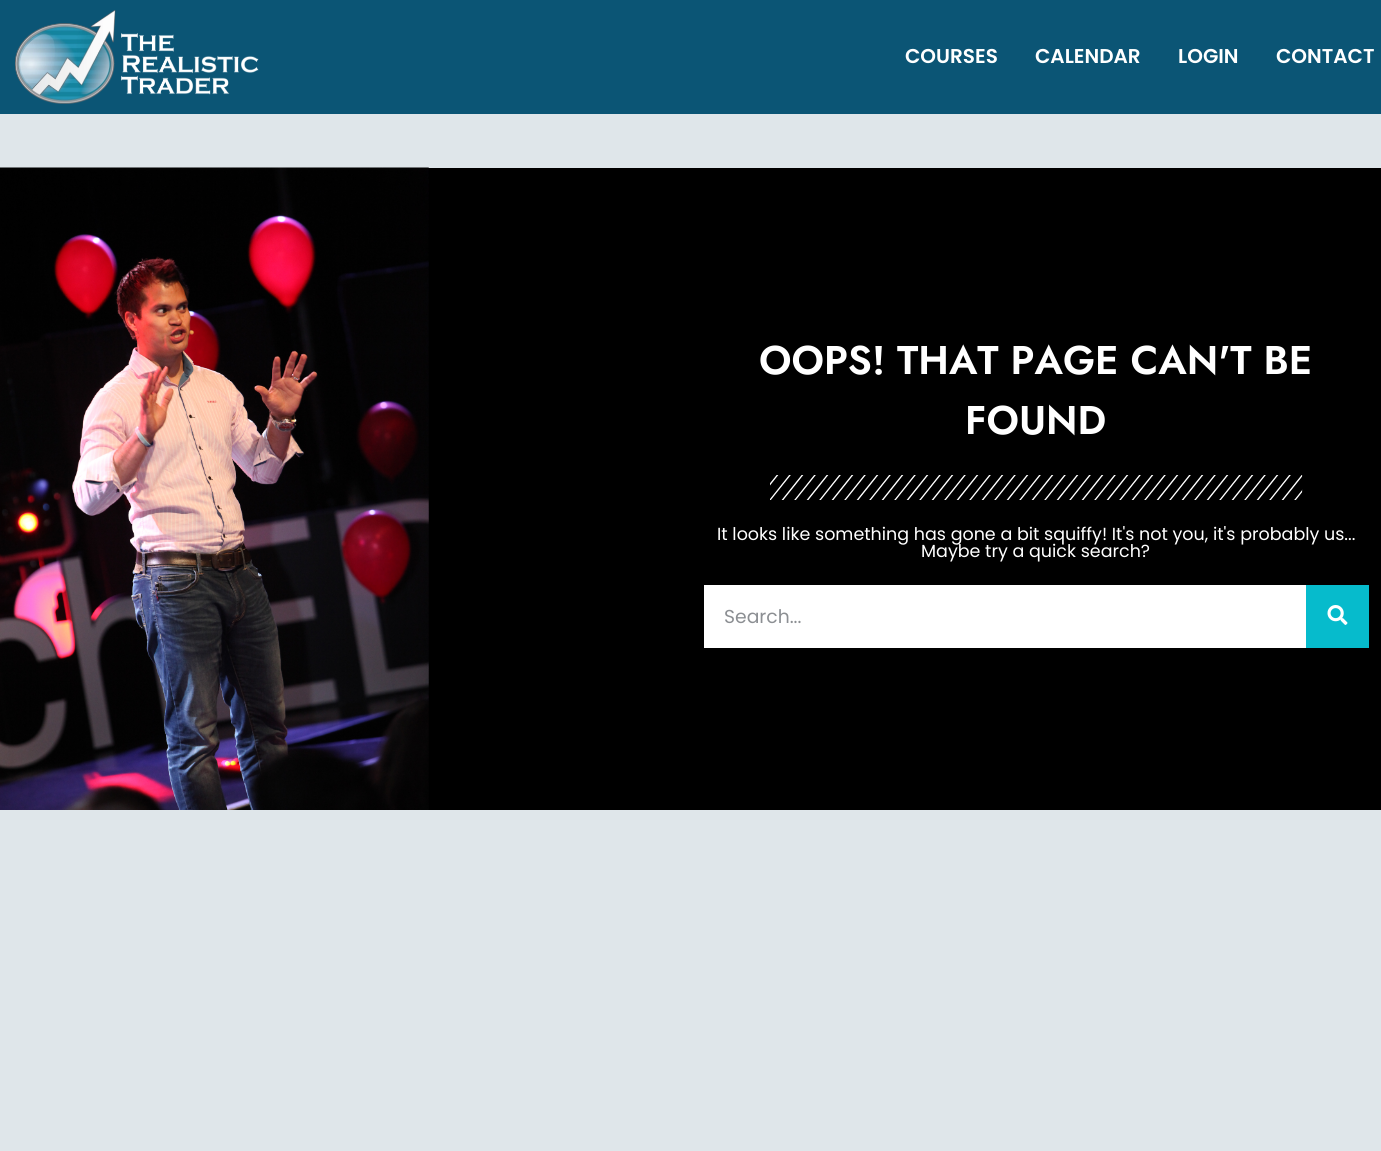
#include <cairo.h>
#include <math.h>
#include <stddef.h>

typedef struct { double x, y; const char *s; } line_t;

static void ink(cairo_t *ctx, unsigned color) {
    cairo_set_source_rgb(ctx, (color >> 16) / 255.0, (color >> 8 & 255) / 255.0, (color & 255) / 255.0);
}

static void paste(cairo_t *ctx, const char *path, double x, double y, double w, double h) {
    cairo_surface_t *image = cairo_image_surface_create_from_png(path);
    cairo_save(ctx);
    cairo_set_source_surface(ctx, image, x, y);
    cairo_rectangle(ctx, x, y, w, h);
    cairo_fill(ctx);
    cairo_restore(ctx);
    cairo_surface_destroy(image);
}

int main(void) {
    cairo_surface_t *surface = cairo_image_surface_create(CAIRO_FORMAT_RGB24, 1381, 1151);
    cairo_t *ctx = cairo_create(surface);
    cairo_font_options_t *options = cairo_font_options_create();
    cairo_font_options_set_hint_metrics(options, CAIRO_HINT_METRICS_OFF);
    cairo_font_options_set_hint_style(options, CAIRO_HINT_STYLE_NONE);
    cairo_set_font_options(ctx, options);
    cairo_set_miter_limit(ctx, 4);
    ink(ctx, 0xDFE6EA);
    cairo_paint(ctx);
    ink(ctx, 0x0B5575);
    cairo_rectangle(ctx, 0, 0, 1381, 114);
    cairo_fill(ctx);
    paste(ctx, "media/1.png", 15, 10, 244, 94);
    cairo_select_font_face(ctx, "Poppins SemiBold", CAIRO_FONT_SLANT_NORMAL, CAIRO_FONT_WEIGHT_NORMAL);
    cairo_set_font_size(ctx, 20);
    ink(ctx, 0xFFFFFF);
    {
        static const line_t items[] = {
            {905, 63, "COURSES"},
            {1035, 63, "CALENDAR"},
            {1178, 63, "LOGIN"},
            {1276, 63, "CONTACT"},
        };
        for (size_t i = 0; i < sizeof items / sizeof *items; i++) {
            cairo_move_to(ctx, items[i].x, items[i].y);
            cairo_show_text(ctx, items[i].s);
        }
    }
    ink(ctx, 0x000000);
    cairo_rectangle(ctx, 428, 168, 953, 642);
    cairo_fill(ctx);
    paste(ctx, "media/2.png", 0, 167, 429, 643);
    cairo_select_font_face(ctx, "Jost SemiBold", CAIRO_FONT_SLANT_NORMAL, CAIRO_FONT_WEIGHT_NORMAL);
    cairo_set_font_size(ctx, 40);
    ink(ctx, 0xFFFFFF);
    cairo_move_to(ctx, 759, 374);
    cairo_show_text(ctx, "OOPS! THAT PAGE CAN'T BE");
    cairo_move_to(ctx, 965, 434);
    cairo_show_text(ctx, "FOUND");
    paste(ctx, "media/3.png", 770, 475, 533, 25);
    cairo_select_font_face(ctx, "Poppins", CAIRO_FONT_SLANT_NORMAL, CAIRO_FONT_WEIGHT_NORMAL);
    cairo_set_font_size(ctx, 17.5);
    cairo_move_to(ctx, 717, 540);
    cairo_show_text(ctx, "It looks like something has gone a bit squiffy! It's not you, it's probably us...");
    cairo_move_to(ctx, 921, 557);
    cairo_show_text(ctx, "Maybe try a quick search?");
    cairo_rectangle(ctx, 704, 585, 602, 63);
    cairo_fill(ctx);
    cairo_set_font_size(ctx, 18.75);
    ink(ctx, 0x8C8F93);
    cairo_move_to(ctx, 724, 623);
    cairo_show_text(ctx, "Search...");
    ink(ctx, 0x06BBCC);
    cairo_rectangle(ctx, 1306, 585, 63, 63);
    cairo_fill(ctx);
    paste(ctx, "media/4.png", 1327, 605, 21, 20);
    cairo_surface_write_to_png(surface, "image.png");
    cairo_font_options_destroy(options);
    cairo_destroy(ctx);
    cairo_surface_destroy(surface);
    return 0;
}
